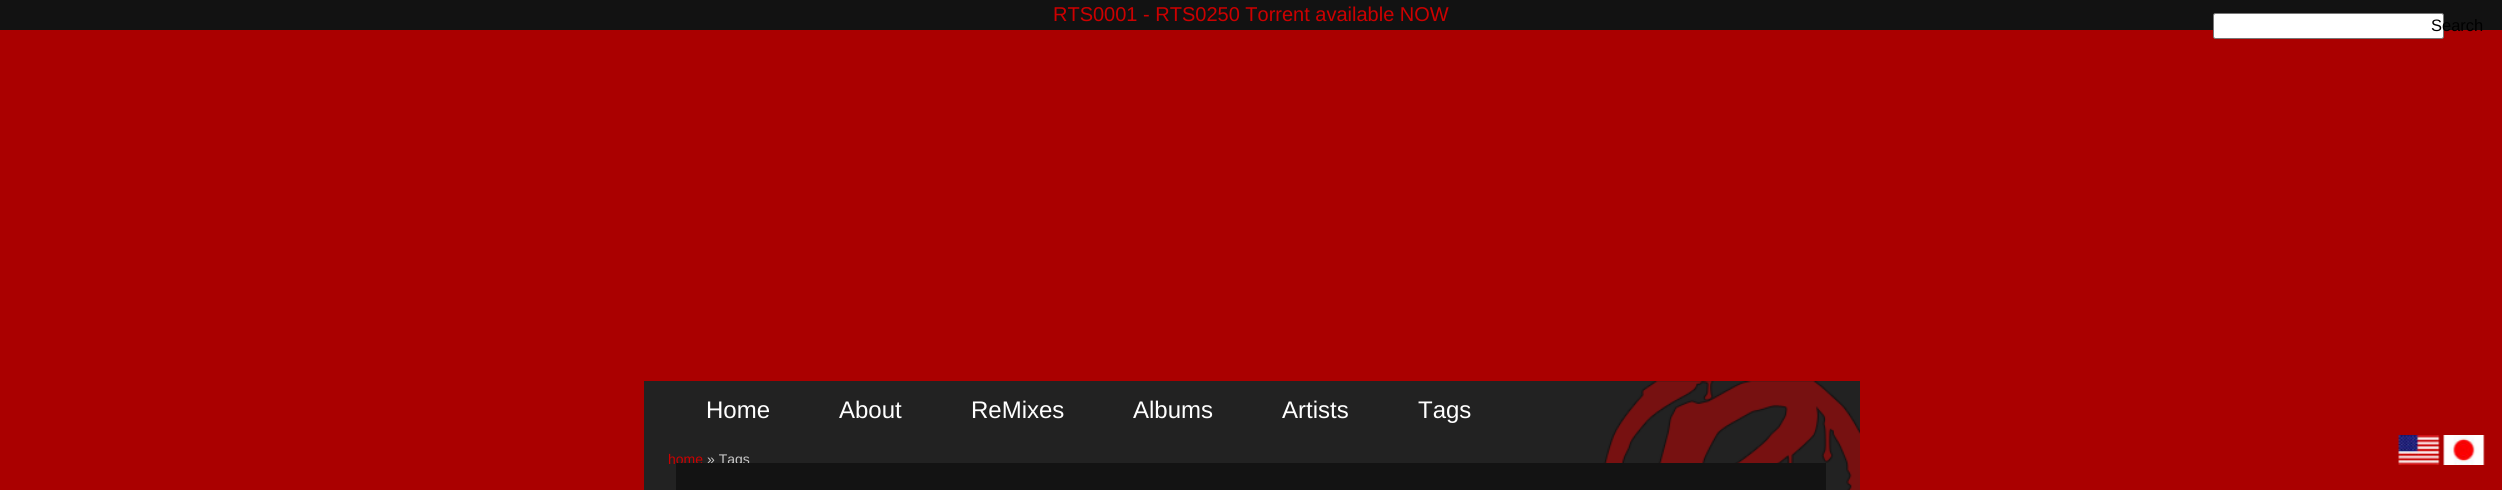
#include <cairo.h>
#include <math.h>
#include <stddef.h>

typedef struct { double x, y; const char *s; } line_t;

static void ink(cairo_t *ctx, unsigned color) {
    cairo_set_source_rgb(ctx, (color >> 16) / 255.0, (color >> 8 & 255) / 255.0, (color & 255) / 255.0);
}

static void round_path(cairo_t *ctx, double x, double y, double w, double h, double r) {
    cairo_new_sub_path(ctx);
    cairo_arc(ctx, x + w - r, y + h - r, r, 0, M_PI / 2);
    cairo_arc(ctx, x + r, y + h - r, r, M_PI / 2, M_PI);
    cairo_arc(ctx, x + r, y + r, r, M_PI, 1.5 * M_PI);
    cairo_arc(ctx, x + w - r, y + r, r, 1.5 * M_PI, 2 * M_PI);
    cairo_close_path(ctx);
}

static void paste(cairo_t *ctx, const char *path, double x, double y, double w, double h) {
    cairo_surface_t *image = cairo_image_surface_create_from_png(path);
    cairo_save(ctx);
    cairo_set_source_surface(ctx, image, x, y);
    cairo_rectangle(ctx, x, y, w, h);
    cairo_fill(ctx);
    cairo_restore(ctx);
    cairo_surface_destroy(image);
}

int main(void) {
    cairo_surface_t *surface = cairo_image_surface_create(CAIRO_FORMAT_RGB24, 2502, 490);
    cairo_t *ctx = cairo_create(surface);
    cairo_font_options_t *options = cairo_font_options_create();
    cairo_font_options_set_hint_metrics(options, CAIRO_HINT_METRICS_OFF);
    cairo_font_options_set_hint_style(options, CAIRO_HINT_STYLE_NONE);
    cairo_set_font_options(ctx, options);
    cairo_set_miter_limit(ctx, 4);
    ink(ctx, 0xAA0000);
    cairo_paint(ctx);
    ink(ctx, 0x121212);
    cairo_rectangle(ctx, 0, 0, 2502, 30);
    cairo_fill(ctx);
    cairo_select_font_face(ctx, "Liberation Sans", CAIRO_FONT_SLANT_NORMAL, CAIRO_FONT_WEIGHT_NORMAL);
    cairo_set_font_size(ctx, 20);
    ink(ctx, 0xCC0000);
    cairo_move_to(ctx, 1053, 21);
    cairo_show_text(ctx, "RTS0001 - RTS0250 Torrent available NOW");
    ink(ctx, 0x222222);
    cairo_rectangle(ctx, 644, 381, 1216, 109);
    cairo_fill(ctx);
    paste(ctx, "media/1.png", 1600, 381, 260, 109);
    ink(ctx, 0xFFFFFF);
    round_path(ctx, 2213.5, 13.5, 230, 25, 2);
    cairo_fill_preserve(ctx);
    ink(ctx, 0x767676);
    cairo_set_line_width(ctx, 1);
    cairo_stroke(ctx);
    cairo_set_font_size(ctx, 16.5);
    ink(ctx, 0x000000);
    cairo_move_to(ctx, 2431, 31);
    cairo_show_text(ctx, "Search");
    cairo_set_font_size(ctx, 24);
    ink(ctx, 0xFFFFFF);
    {
        static const line_t items[] = {
            {706, 418, "Home"},
            {839, 418, "About"},
            {971, 418, "ReMixes"},
            {1133, 418, "Albums"},
            {1282, 418, "Artists"},
            {1418, 418, "Tags"},
        };
        for (size_t i = 0; i < sizeof items / sizeof *items; i++) {
            cairo_move_to(ctx, items[i].x, items[i].y);
            cairo_show_text(ctx, items[i].s);
        }
    }
    cairo_set_font_size(ctx, 14);
    ink(ctx, 0xCC0000);
    cairo_move_to(ctx, 668, 464);
    cairo_show_text(ctx, "home");
    ink(ctx, 0xC8C8C8);
    cairo_move_to(ctx, 707, 464);
    cairo_show_text(ctx, "» Tags");
    ink(ctx, 0x131313);
    cairo_rectangle(ctx, 676, 463, 1150, 27);
    cairo_fill(ctx);
    paste(ctx, "media/2.png", 2398, 435, 42, 30);
    paste(ctx, "media/3.png", 2443, 435, 42, 30);
    cairo_surface_write_to_png(surface, "image.png");
    cairo_font_options_destroy(options);
    cairo_destroy(ctx);
    cairo_surface_destroy(surface);
    return 0;
}
